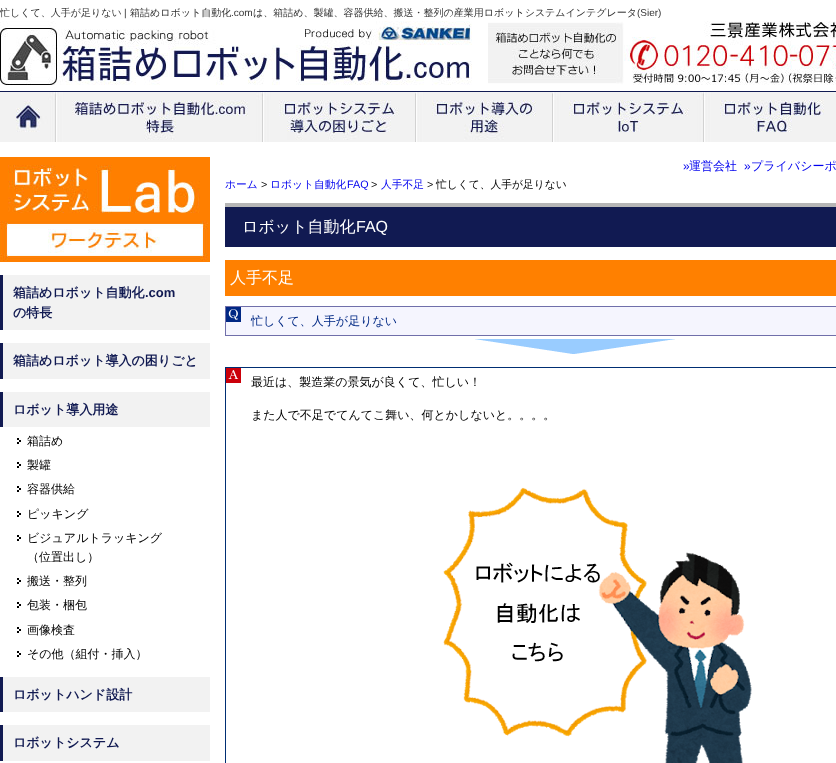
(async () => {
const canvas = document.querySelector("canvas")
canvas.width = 836
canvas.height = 763
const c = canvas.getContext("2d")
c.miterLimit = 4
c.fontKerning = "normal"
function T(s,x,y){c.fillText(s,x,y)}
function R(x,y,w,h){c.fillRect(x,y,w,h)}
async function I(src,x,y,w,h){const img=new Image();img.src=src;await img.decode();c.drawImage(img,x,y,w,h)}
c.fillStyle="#fff"
R(0,0,836,763)
c.fillStyle="#111b53"
R(0,91,836,1)
c.font="500 10px WenQuanYi Zen Hei"
c.fillStyle="#333"
T("忙しくて、人手が足りない",0,16)
c.font="10px Liberation Sans"
T("|",124,16)
c.font="500 10px WenQuanYi Zen Hei"
T("箱詰めロボット自動化",130,16)
c.font="10px Liberation Sans"
T(".com",231,16)
c.font="500 10px WenQuanYi Zen Hei"
T("は、箱詰め、製罐、容器供給、搬送・整列の産業用ロボットシステムインテグレータ",253,16)
c.font="10px Liberation Sans"
T("(Sier)",637,16)
await I("1.png",0,21,836,64)
c.fillStyle="#f2f2f2"
R(0,92,836,50)
await I("2.png",16,92,40,50)
await I("3.png",56,92,207,50)
await I("4.png",263,92,153,50)
await I("5.png",416,92,137,50)
await I("6.png",553,92,151,50)
await I("7.png",704,92,120,50)
await I("8.png",0,157,210,105)
R(3,275,207,55)
c.fillStyle="#111a52"
R(0,275,3,55)
c.font="bold 13px WenQuanYi Zen Hei"
T("箱詰めロボット自動化",13,297)
c.font="bold 13px Liberation Sans"
T(".com",145,297)
c.font="bold 13px WenQuanYi Zen Hei"
T("の特長",13,317)
c.fillStyle="#f2f2f2"
R(3,343,207,36)
c.fillStyle="#111a52"
R(0,343,3,36)
T("箱詰めロボット導入の困りごと",13,365)
c.fillStyle="#f2f2f2"
R(3,392,207,35)
c.fillStyle="#111a52"
R(0,392,3,35)
T("ロボット導入用途",13,414)
await I("9.png",17,438,4,6)
c.font="500 12px WenQuanYi Zen Hei"
c.fillStyle="#000"
T("箱詰め",27,445)
await I("9.png",17,462,4,6)
T("製罐",27,469)
await I("9.png",17,486,4,6)
T("容器供給",27,493)
await I("9.png",17,511,4,6)
T("ピッキング",27,518)
await I("9.png",17,535,4,6)
T("ビジュアルトラッキング",27,542)
T("（位置出し）",27,561)
await I("9.png",17,578,4,6)
T("搬送・整列",27,585)
await I("9.png",17,602,4,6)
T("包装・梱包",27,609)
await I("9.png",17,627,4,6)
T("画像検査",27,634)
await I("9.png",17,651,4,6)
T("その他（組付・挿入）",27,658)
c.fillStyle="#f2f2f2"
R(3,677,207,35)
c.fillStyle="#111a52"
R(0,677,3,35)
c.font="bold 13px WenQuanYi Zen Hei"
T("ロボットハンド設計",13,699)
c.fillStyle="#f2f2f2"
R(3,725,207,36)
c.fillStyle="#111a52"
R(0,725,3,36)
T("ロボットシステム",13,747)
c.font="12px Liberation Sans"
c.fillStyle="#00e"
T("»",683,170)
c.font="500 12px WenQuanYi Zen Hei"
T("運営会社",689,170)
c.font="12px Liberation Sans"
T("»",744,170)
c.font="500 12px WenQuanYi Zen Hei"
T("プライバシーポ",751,170)
c.font="500 10.75px WenQuanYi Zen Hei"
T("ホーム",225,188)
c.font="10.75px Liberation Sans"
c.fillStyle="#000"
T(">",261,188)
c.font="500 10.75px WenQuanYi Zen Hei"
c.fillStyle="#00e"
T("ロボット自動化",270,188)
c.font="10.75px Liberation Sans"
T("FAQ",347,188)
c.fillStyle="#000"
T(">",371,188)
c.font="500 10.75px WenQuanYi Zen Hei"
c.fillStyle="#00e"
T("人手不足",381,188)
c.font="10.75px Liberation Sans"
c.fillStyle="#000"
T(">",427,188)
c.font="500 10.75px WenQuanYi Zen Hei"
T("忙しくて、人手が足りない",436,188)
c.fillStyle="#111a52"
R(225,207,611,40)
c.fillStyle="#b6b6b6"
R(225,203,611,4)
c.font="500 16px WenQuanYi Zen Hei"
c.fillStyle="#fff"
T("ロボット自動化",242,232)
c.font="16px Liberation Sans"
T("FAQ",356,232)
c.fillStyle="#ff8000"
R(225,260,611,36)
c.font="500 16px WenQuanYi Zen Hei"
c.fillStyle="#fff"
T("人手不足",230,283)
c.fillStyle="#f5f5fe"
R(226,307,610,28)
await I("10.png",226,307,15,15)
c.strokeStyle="#706faa"
c.strokeRect(225.5,306.5,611,29)
c.font="500 12px WenQuanYi Zen Hei"
c.fillStyle="#012884"
T("忙しくて、人手が足りない",251,325)
await I("11.png",475,339,200,15)
await I("12.png",226,368,15,15)
c.strokeStyle="#002e73"
c.strokeRect(225.5,367.5,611,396)
c.fillStyle="#000"
T("最近は、製造業の景気が良くて、忙しい！",251,386)
T("また人で不足でてんてこ舞い、何とかしないと。。。。",251,419)
await I("13.png",443,487,309,276)
})()
